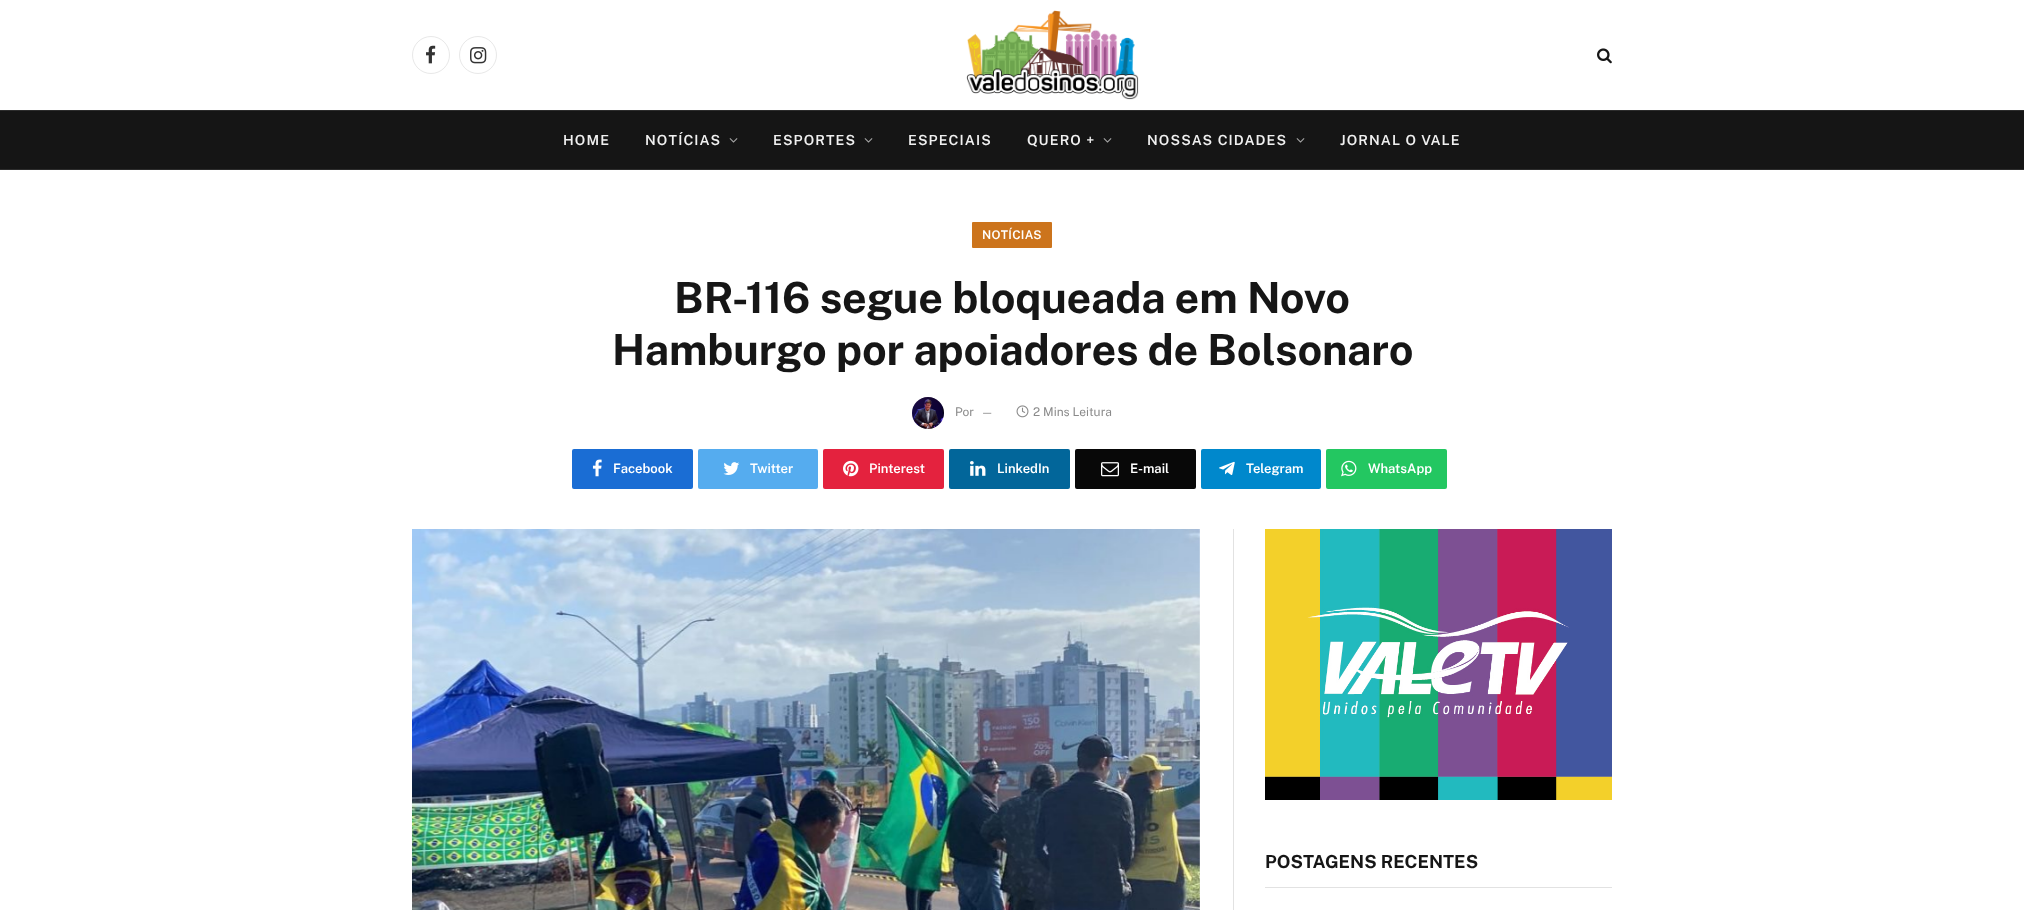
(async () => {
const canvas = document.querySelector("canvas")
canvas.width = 2024
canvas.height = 910
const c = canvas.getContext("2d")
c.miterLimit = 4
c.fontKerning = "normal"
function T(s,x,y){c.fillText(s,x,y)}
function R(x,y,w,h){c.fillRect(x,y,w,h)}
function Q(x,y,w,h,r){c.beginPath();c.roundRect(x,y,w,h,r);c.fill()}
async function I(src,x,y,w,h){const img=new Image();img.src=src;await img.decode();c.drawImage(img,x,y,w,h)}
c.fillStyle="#fff"
R(0,0,2024,910)
c.beginPath()
c.arc(431,55,18.5,0,7)
c.strokeStyle="#e8e8e8"
c.stroke()
await I("1.png",426,45,10,19)
c.beginPath()
c.arc(478,55,18.5,0,7)
c.stroke()
await I("2.png",470,47,17,17)
await I("3.png",966,10,173,90)
await I("4.png",1597,48,15,16)
c.fillStyle="#151515"
R(0,111,2024,58)
c.fillStyle="#2c2c2c"
R(0,110,2024,1)
R(0,169,2024,1)
c.letterSpacing="1.1px"
c.font="600 14px Public Sans"
c.fillStyle="#f0f0f0"
T("HOME",563,145)
T("NOTÍCIAS",645,145)
await I("5.png",729,138,9,5)
T("ESPORTES",773,145)
await I("5.png",864,138,9,5)
T("ESPECIAIS",908,145)
T("QUERO +",1027,145)
await I("5.png",1103,138,9,5)
T("NOSSAS CIDADES",1147,145)
await I("5.png",1296,138,9,5)
T("JORNAL O VALE",1340,145)
c.fillStyle="#cc741c"
Q(972,222,80,26,1)
c.letterSpacing="0.25px"
c.font="600 12px Public Sans"
c.fillStyle="#fff"
T("NOTÍCIAS",982,239)
c.letterSpacing="-0.2px"
c.font="bold 43px Public Sans"
c.fillStyle="#161616"
T("BR-116 segue bloqueada em Novo",674,313)
T("Hamburgo por apoiadores de Bolsonaro",612,365)
c.fillStyle="#00000033"
c.filter="blur(0.5px)"
c.beginPath()
c.roundRect(912,397,32,32,16)
c.fill()
c.filter="none"
await I("6.png",912,397,32,32)
c.letterSpacing="0px"
c.font="12px Public Sans"
c.fillStyle="#8a8a8a"
T("Por",955,416)
c.font="11px Public Sans"
T("—",981,416)
await I("7.png",1016,405,13,13)
c.font="12px Public Sans"
T("2 Mins Leitura",1033,416)
c.fillStyle="#1a6dd4"
Q(572,449,121,40,2)
await I("8.png",592,459,10,18)
c.font="600 13px Public Sans"
c.fillStyle="#fff"
T("Facebook",613,473)
c.fillStyle="#55acef"
Q(698,449,120,40,2)
await I("9.png",723,462,17,13)
c.fillStyle="#fff"
T("Twitter",750,473)
c.fillStyle="#e4223e"
Q(823,449,121,40,2)
await I("10.png",843,460,16,17)
c.fillStyle="#fff"
T("Pinterest",869,473)
c.fillStyle="#02669a"
Q(949,449,121,40,2)
await I("11.png",970,461,16,15)
c.fillStyle="#fff"
T("LinkedIn",997,473)
c.fillStyle="#080808"
Q(1075,449,121,40,2)
await I("12.png",1101,462,18,15)
c.fillStyle="#fff"
T("E-mail",1130,473)
c.fillStyle="#08c"
Q(1201,449,120,40,2)
await I("13.png",1219,461,16,14)
c.fillStyle="#fff"
T("Telegram",1246,473)
c.fillStyle="#23c761"
Q(1326,449,121,40,2)
await I("14.png",1341,460,16,17)
c.fillStyle="#fff"
T("WhatsApp",1368,473)
await I("15.png",412,529,788,381)
c.fillStyle="#e2e2e2"
R(1233,529,1,381)
await I("16.png",1265,529,347,271)
R(1265,887,347,1)
c.font="bold 18px Public Sans"
c.fillStyle="#161616"
T("POSTAGENS RECENTES",1265,868)
})()
